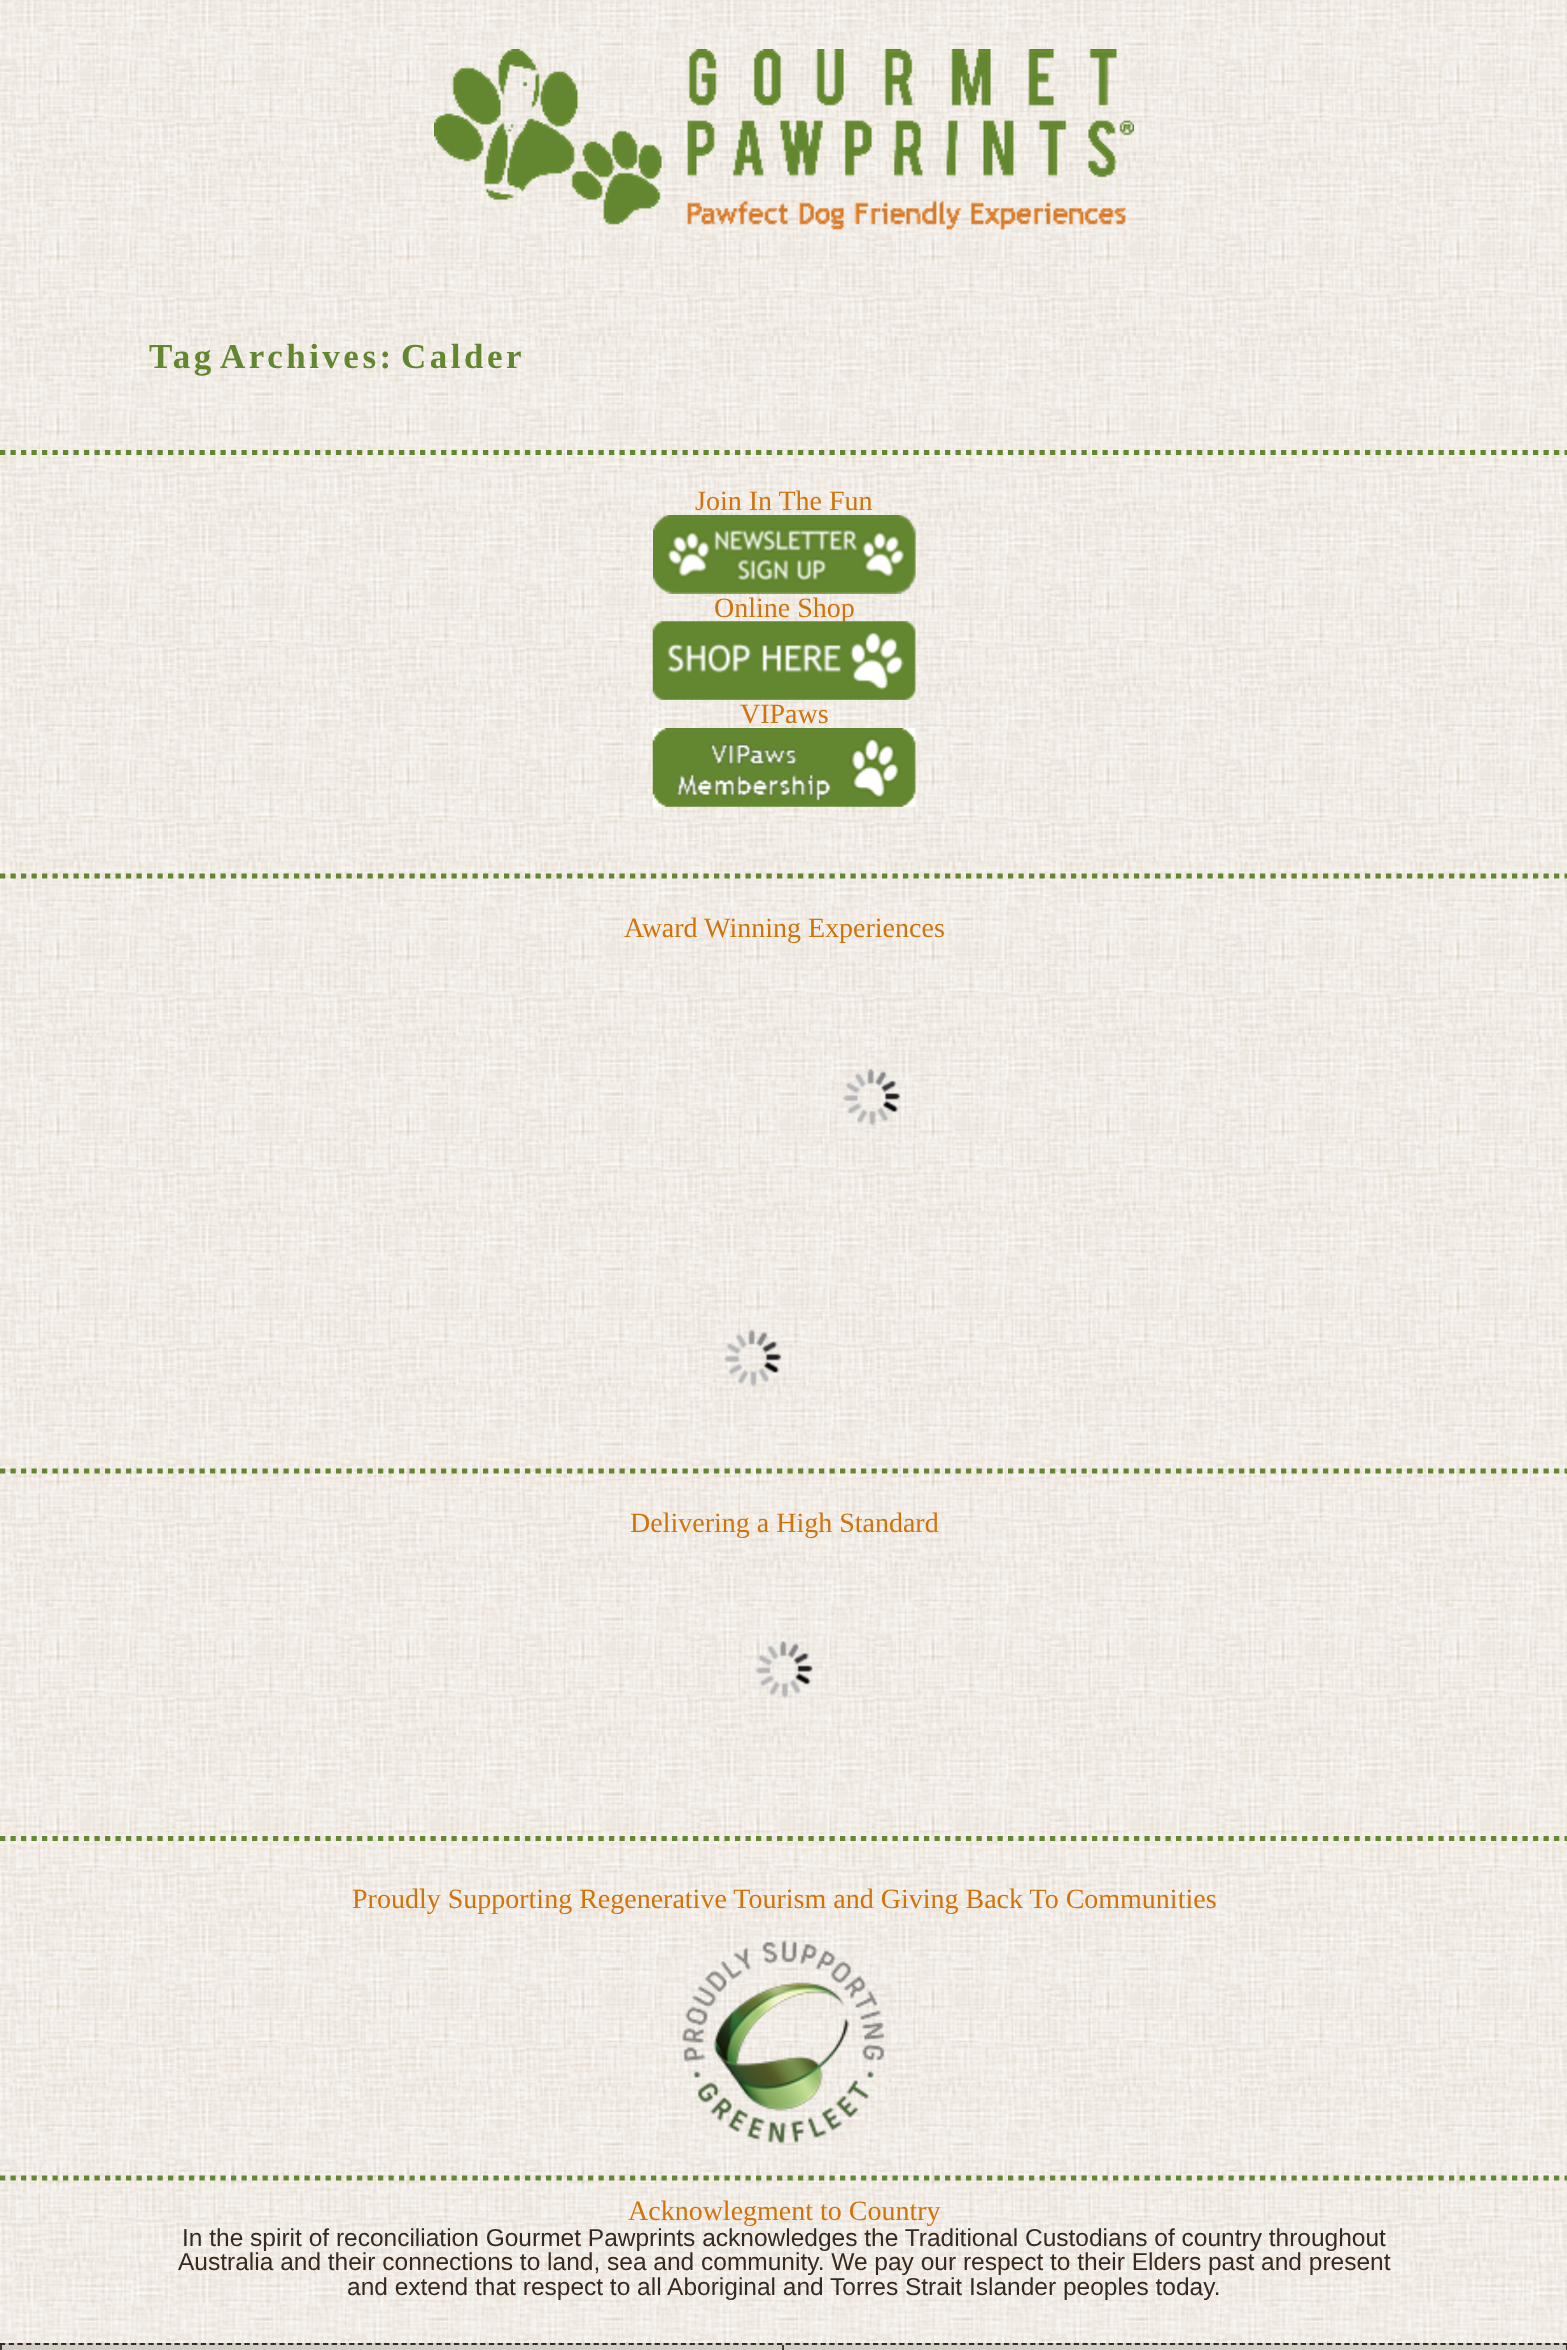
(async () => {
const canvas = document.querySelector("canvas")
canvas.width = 1567
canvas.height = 2350
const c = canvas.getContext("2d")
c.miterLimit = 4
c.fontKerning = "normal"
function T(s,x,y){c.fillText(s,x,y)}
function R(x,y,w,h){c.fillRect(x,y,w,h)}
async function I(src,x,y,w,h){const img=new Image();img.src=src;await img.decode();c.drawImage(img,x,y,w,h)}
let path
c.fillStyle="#fff"
R(0,0,1567,2350)
await I("1.png",0,0,1567,2343)
await I("2.png",434,49,700,182)
c.letterSpacing="3.5px"
c.wordSpacing="-5px"
c.font="bold 35px Liberation Serif"
c.fillStyle="#638630"
T("Tag Archives:",149,368)
c.wordSpacing="0px"
T("Calder",401,368)
path = new Path2D("M0 452.5h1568")
c.strokeStyle="#638630"
c.lineWidth=5.2
c.setLineDash([5.25,5.25])
c.stroke(path)
path = new Path2D("M0 876h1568")
c.stroke(path)
c.letterSpacing="0px"
c.font="28px Liberation Serif"
c.fillStyle="#cf730c"
T("Join In The Fun",695,510)
await I("3.png",653,515,263,79)
T("Online Shop",714,617)
await I("4.png",652,621,264,79)
T("VIPaws",740,723)
await I("5.png",652,728,264,79)
T("Award Winning Experiences",624,937)
await I("6.png",843,1069,58,57)
await I("7.png",724,1329,57,58)
path = new Path2D("M0 1471h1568")
c.stroke(path)
T("Delivering a High Standard",630,1532)
await I("8.png",755,1641,58,57)
path = new Path2D("M0 1838.5h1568")
c.stroke(path)
T("Proudly Supporting Regenerative Tourism and Giving Back To Communities",352,1908)
await I("9.png",682,1940,203,204)
path = new Path2D("M0 2178h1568")
c.stroke(path)
T("Acknowlegment to Country",628,2220)
c.font="24.5px Liberation Sans"
c.fillStyle="#36291f"
T("In the spirit of reconciliation Gourmet Pawprints acknowledges the Traditional Custodians of country throughout",182,2246)
T("Australia and their connections to land, sea and community. We pay our respect to their Elders past and present",178,2270)
T("and extend that respect to all Aboriginal and Torres Strait Islander peoples today.",347,2295)
c.fillStyle="#d1cec6"
R(0,2343,1567,7)
path = new Path2D("M0 2344h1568")
c.strokeStyle="#36291f"
c.lineWidth=1.8
c.setLineDash([5.25,3.48])
c.stroke(path)
path = new Path2D("M783 2345v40")
c.setLineDash([5.25,3.5])
c.stroke(path)
path = new Path2D("M1 2345v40")
c.stroke(path)
path = new Path2D("M1567 2345v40")
c.stroke(path)
})()
